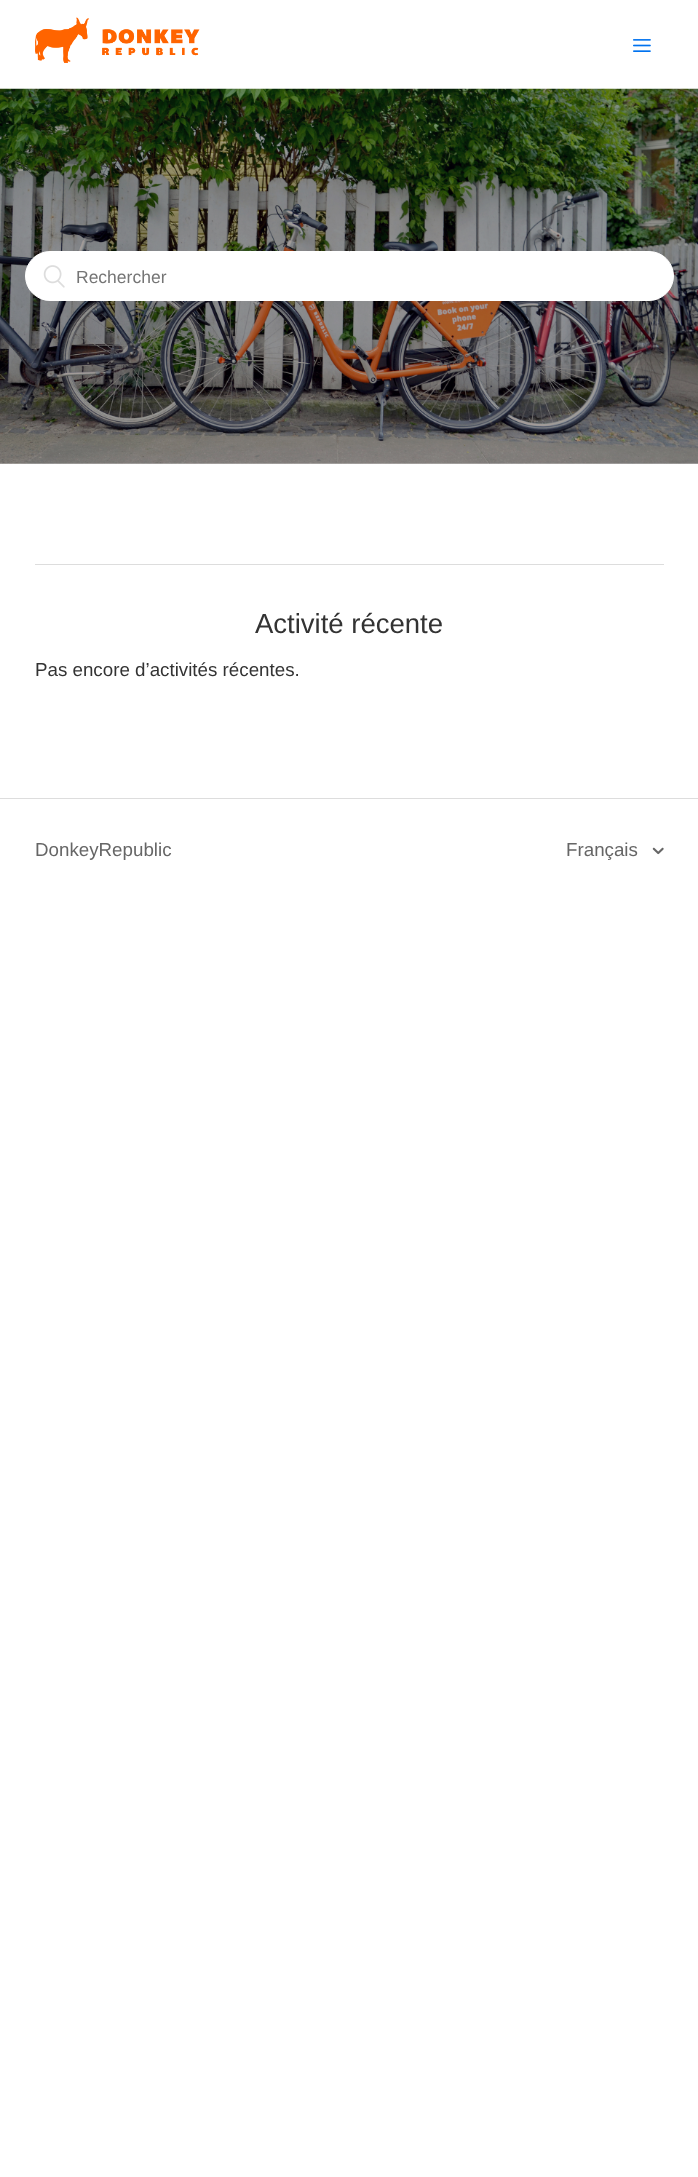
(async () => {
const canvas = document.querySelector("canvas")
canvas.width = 698
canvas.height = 2177
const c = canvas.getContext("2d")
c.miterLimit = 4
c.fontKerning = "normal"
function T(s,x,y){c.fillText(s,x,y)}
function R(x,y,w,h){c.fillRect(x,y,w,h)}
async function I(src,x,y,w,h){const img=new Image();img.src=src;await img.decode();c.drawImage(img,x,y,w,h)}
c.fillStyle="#fff"
R(0,0,698,2177)
await I("1.png",35,17,165,46)
await I("2.png",633,39,18,13)
await I("3.png",0,88,698,376)
c.beginPath()
c.roundRect(25.5,251.5,648,49,24.5)
c.fill()
c.strokeStyle="#fff"
c.stroke()
await I("4.png",43,265,22,23)
c.font="17.5px Liberation Sans"
c.fillStyle="#757575"
T("Rechercher",76,283)
c.fillStyle="#ddd"
R(35,564,629,1)
c.font="27.5px Liberation Sans"
c.fillStyle="#333"
T("Activité récente",255,633)
c.font="18.75px Liberation Sans"
T("Pas encore d’activités récentes.",35,676)
c.fillStyle="#ddd"
R(0,798,698,1)
c.fillStyle="#666"
T("DonkeyRepublic",35,856)
T("Français",566,856)
await I("5.png",652,847,12,8)
})()
